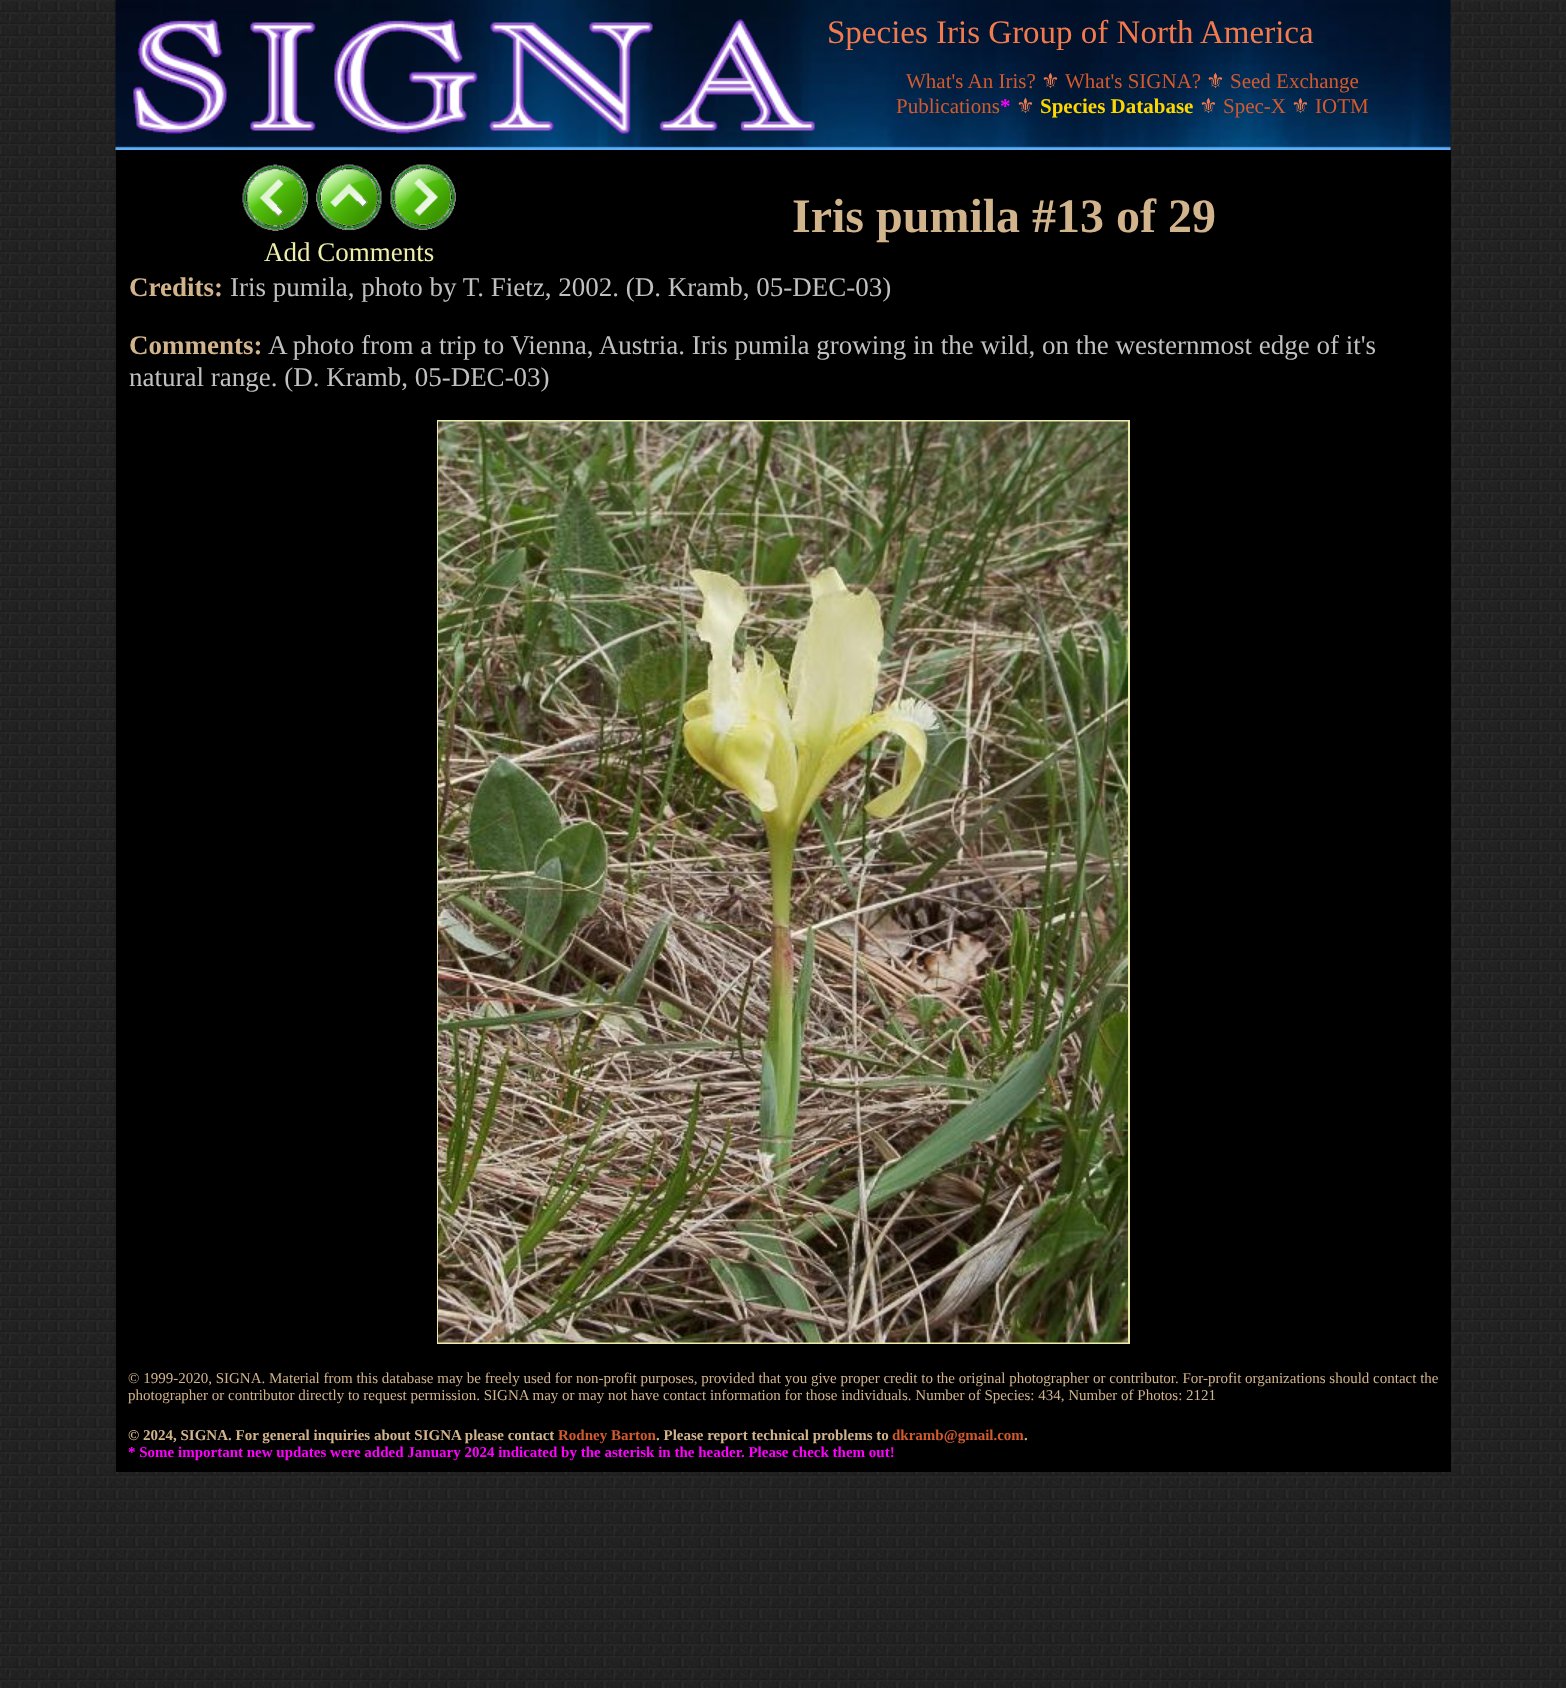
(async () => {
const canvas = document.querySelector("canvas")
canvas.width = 1566
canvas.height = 1688
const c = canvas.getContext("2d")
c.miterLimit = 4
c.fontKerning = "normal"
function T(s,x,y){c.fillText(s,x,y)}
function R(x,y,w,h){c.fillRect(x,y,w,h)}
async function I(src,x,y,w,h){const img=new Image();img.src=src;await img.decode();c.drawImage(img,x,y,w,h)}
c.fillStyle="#fff"
R(0,0,1566,1688)
await I("1.png",0,0,1566,1688)
await I("2.png",115,0,1336,150)
await I("3.png",133,19,682,115)
c.font="33px Liberation Serif"
c.fillStyle="#f37a4d"
T("Species Iris Group of North America",827,43)
c.font="21px Liberation Serif"
c.fillStyle="#d35a2d"
T("What's An Iris?",906,88)
c.font="21px DejaVu Sans"
c.fillStyle="#f37a4d"
T("⚜",1041,88)
c.font="21px Liberation Serif"
c.fillStyle="#d35a2d"
T("What's SIGNA?",1065,88)
c.font="21px DejaVu Sans"
c.fillStyle="#f37a4d"
T("⚜",1206,88)
c.font="21px Liberation Serif"
c.fillStyle="#d35a2d"
T("Seed Exchange",1230,88)
T("Publications",896,113)
c.font="bold 21px Liberation Serif"
c.fillStyle="#f0f"
T("*",1000,113)
c.font="21px DejaVu Sans"
c.fillStyle="#f37a4d"
T("⚜",1016,113)
c.font="bold 21px Liberation Serif"
c.fillStyle="#ffd700"
T("Species Database",1040,113)
c.font="21px DejaVu Sans"
c.fillStyle="#f37a4d"
T("⚜",1199,113)
c.font="21px Liberation Serif"
c.fillStyle="#d35a2d"
T("Spec-X",1223,113)
c.font="21px DejaVu Sans"
c.fillStyle="#f37a4d"
T("⚜",1291,113)
c.font="21px Liberation Serif"
c.fillStyle="#d35a2d"
T("IOTM",1315,113)
c.fillStyle="#000"
R(116,150,1335,1322)
c.font="bold 48px Liberation Serif"
c.fillStyle="#d2b48c"
T("Iris pumila #13 of 29",792,232)
await I("4.png",242,164,67,67)
await I("5.png",316,164,66,67)
await I("6.png",390,164,66,67)
c.font="27px Liberation Serif"
c.fillStyle="#eea"
T("Add Comments",264,261)
c.font="bold 27px Liberation Serif"
c.fillStyle="#d2b48c"
T("Credits:",129,296)
c.font="27px Liberation Serif"
c.fillStyle="#c0c0c0"
T("Iris pumila, photo by T. Fietz, 2002. (D. Kramb, 05-DEC-03)",230,296)
c.font="bold 27px Liberation Serif"
c.fillStyle="#d2b48c"
T("Comments:",129,354)
c.font="27px Liberation Serif"
c.fillStyle="#c0c0c0"
T("A photo from a trip to Vienna, Austria. Iris pumila growing in the wild, on the westernmost edge of it's",268,354)
T("natural range. (D. Kramb, 05-DEC-03)",129,386)
c.strokeStyle="#eea"
c.lineWidth=2
c.strokeRect(438,421,691,922)
await I("7.png",438,421,690,922)
c.font="15px Liberation Serif"
c.fillStyle="#d2b48c"
T("© 1999-2020, SIGNA. Material from this database may be freely used for non-profit purposes, provided that you give proper credit to the original photographer or contributor. For-profit organizations should contact the",128,1383)
T("photographer or contributor directly to request permission. SIGNA may or may not have contact information for those individuals. Number of Species: 434, Number of Photos: 2121",128,1400)
c.font="bold 15px Liberation Serif"
T("© 2024, SIGNA. For general inquiries about SIGNA please contact",128,1440)
c.fillStyle="#d35a2d"
T("Rodney Barton",558,1440)
c.fillStyle="#d2b48c"
T(". Please report technical problems to",656,1440)
c.fillStyle="#d35a2d"
T("dkramb@gmail.com",892,1440)
c.fillStyle="#d2b48c"
T(".",1024,1440)
c.fillStyle="#f0f"
T("* Some important new updates were added January 2024 indicated by the asterisk in the header. Please check them out!",128,1457)
})()
